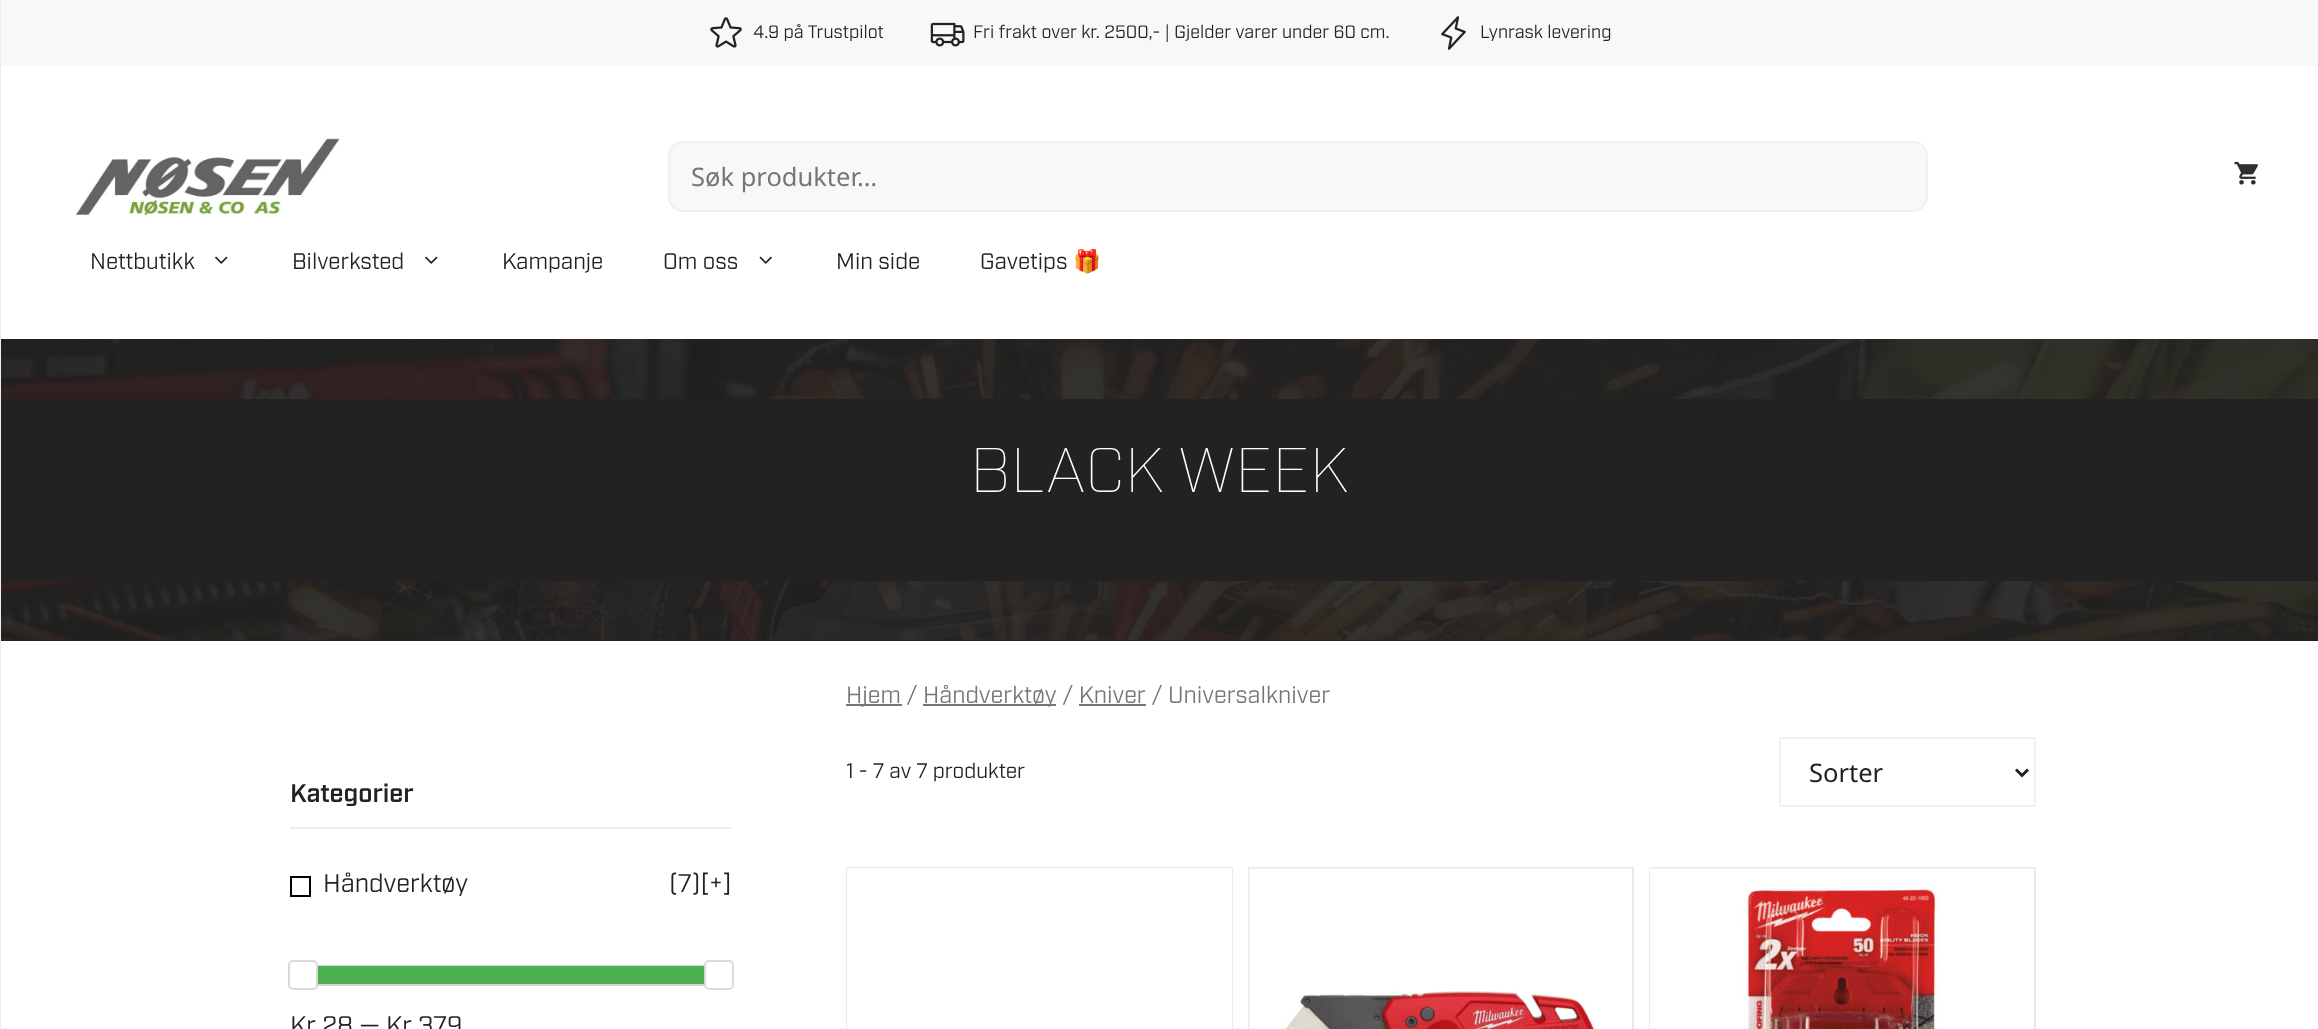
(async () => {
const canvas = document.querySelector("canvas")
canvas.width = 2318
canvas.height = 1029
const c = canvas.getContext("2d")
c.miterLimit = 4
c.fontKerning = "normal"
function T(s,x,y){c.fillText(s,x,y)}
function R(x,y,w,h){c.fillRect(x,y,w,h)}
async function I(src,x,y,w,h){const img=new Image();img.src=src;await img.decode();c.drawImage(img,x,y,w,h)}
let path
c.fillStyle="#fff"
R(0,0,2318,1029)
c.fillStyle="#eee"
R(0,0,1,1029)
c.fillStyle="#f7f8f9"
R(1,0,2317,66)
await I("1.png",710,17,32,31)
c.font="18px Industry"
c.fillStyle="#222"
T("4.9 på Trustpilot",753,38)
await I("2.png",930,22,35,25)
T("Fri frakt over kr. 2500,- | Gjelder varer under 60 cm.",973,38)
await I("3.png",1441,16,25,34)
T("Lynrask levering",1480,38)
await I("4.png",75,138,265,79)
c.fillStyle="#f7f8f9"
c.beginPath()
c.roundRect(669,142,1258,69,14)
c.fill()
c.strokeStyle="#f0f0f0"
c.lineWidth=2
c.stroke()
c.font="25.5px Noto Sans"
c.fillStyle="#767676"
T("Søk produkter…",691,186)
await I("5.png",2234,161,24,24)
c.font="22.5px Industry"
c.fillStyle="#222"
T("Nettbutikk",90,269)
await I("6.png",215,256,13,8)
T("Bilverksted",292,269)
await I("6.png",425,256,13,8)
T("Kampanje",502,269)
T("Om oss",663,269)
await I("7.png",759,256,13,8)
T("Min side",836,269)
T("Gavetips",980,269)
c.font="22.5px Noto Color Emoji"
T("🎁",1073,269)
R(1,339,2317,302)
await I("8.png",1,339,2317,301)
R(1,399,2317,182)
c.font="100 63px Industry"
c.fillStyle="#fff"
T("BLACK WEEK",970,492)
c.fillStyle="#767676"
R(846,704,56,2)
c.font="23.5px Industry"
T("Hjem /",846,703)
R(923,704,133,2)
T("Håndverktøy / Kniver / Universalkniver",923,703)
R(1079,704,67,2)
c.font="21px Industry"
c.fillStyle="#222"
T("1 - 7 av 7 produkter",846,778)
c.strokeRect(1780,738,255,68)
path = new Path2D("M2016 769.5l6 6l6-6")
c.strokeStyle="#222"
c.lineWidth=3
c.stroke(path)
c.font="25.5px Noto Sans"
T("Sorter",1809,782)
c.strokeStyle="#e9e9e9"
c.lineWidth=2
c.strokeRect(847,868,385,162)
c.fillStyle="#fff"
R(847,868,385,161)
c.strokeRect(1249,868,384,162)
await I("9.png",1249,868,383,161)
c.strokeRect(1650,868,385,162)
await I("10.png",1650,868,384,161)
c.fillStyle="#efefef"
R(290,827,442,2)
c.font="600 25.5px Industry"
c.fillStyle="#222"
T("Kategorier",290,802)
c.strokeStyle="#000"
c.strokeRect(291,877,19,19)
c.font="25.5px Industry"
T("Håndverktøy",323,892)
T("(7)[+]",669,892)
c.strokeStyle="#d3d3d3"
c.strokeRect(291,966,440,19)
c.fillStyle="#fff"
c.beginPath()
c.roundRect(289,961,28,28,4)
c.fill()
c.strokeStyle="#d9d9d9"
c.stroke()
c.fillStyle="#4caf50"
R(318,966,386,18)
c.fillStyle="#fff"
c.beginPath()
c.roundRect(705,961,28,28,4)
c.fill()
c.stroke()
c.fillStyle="#222"
T("Kr 28 — Kr 379",290,1034)
})()
